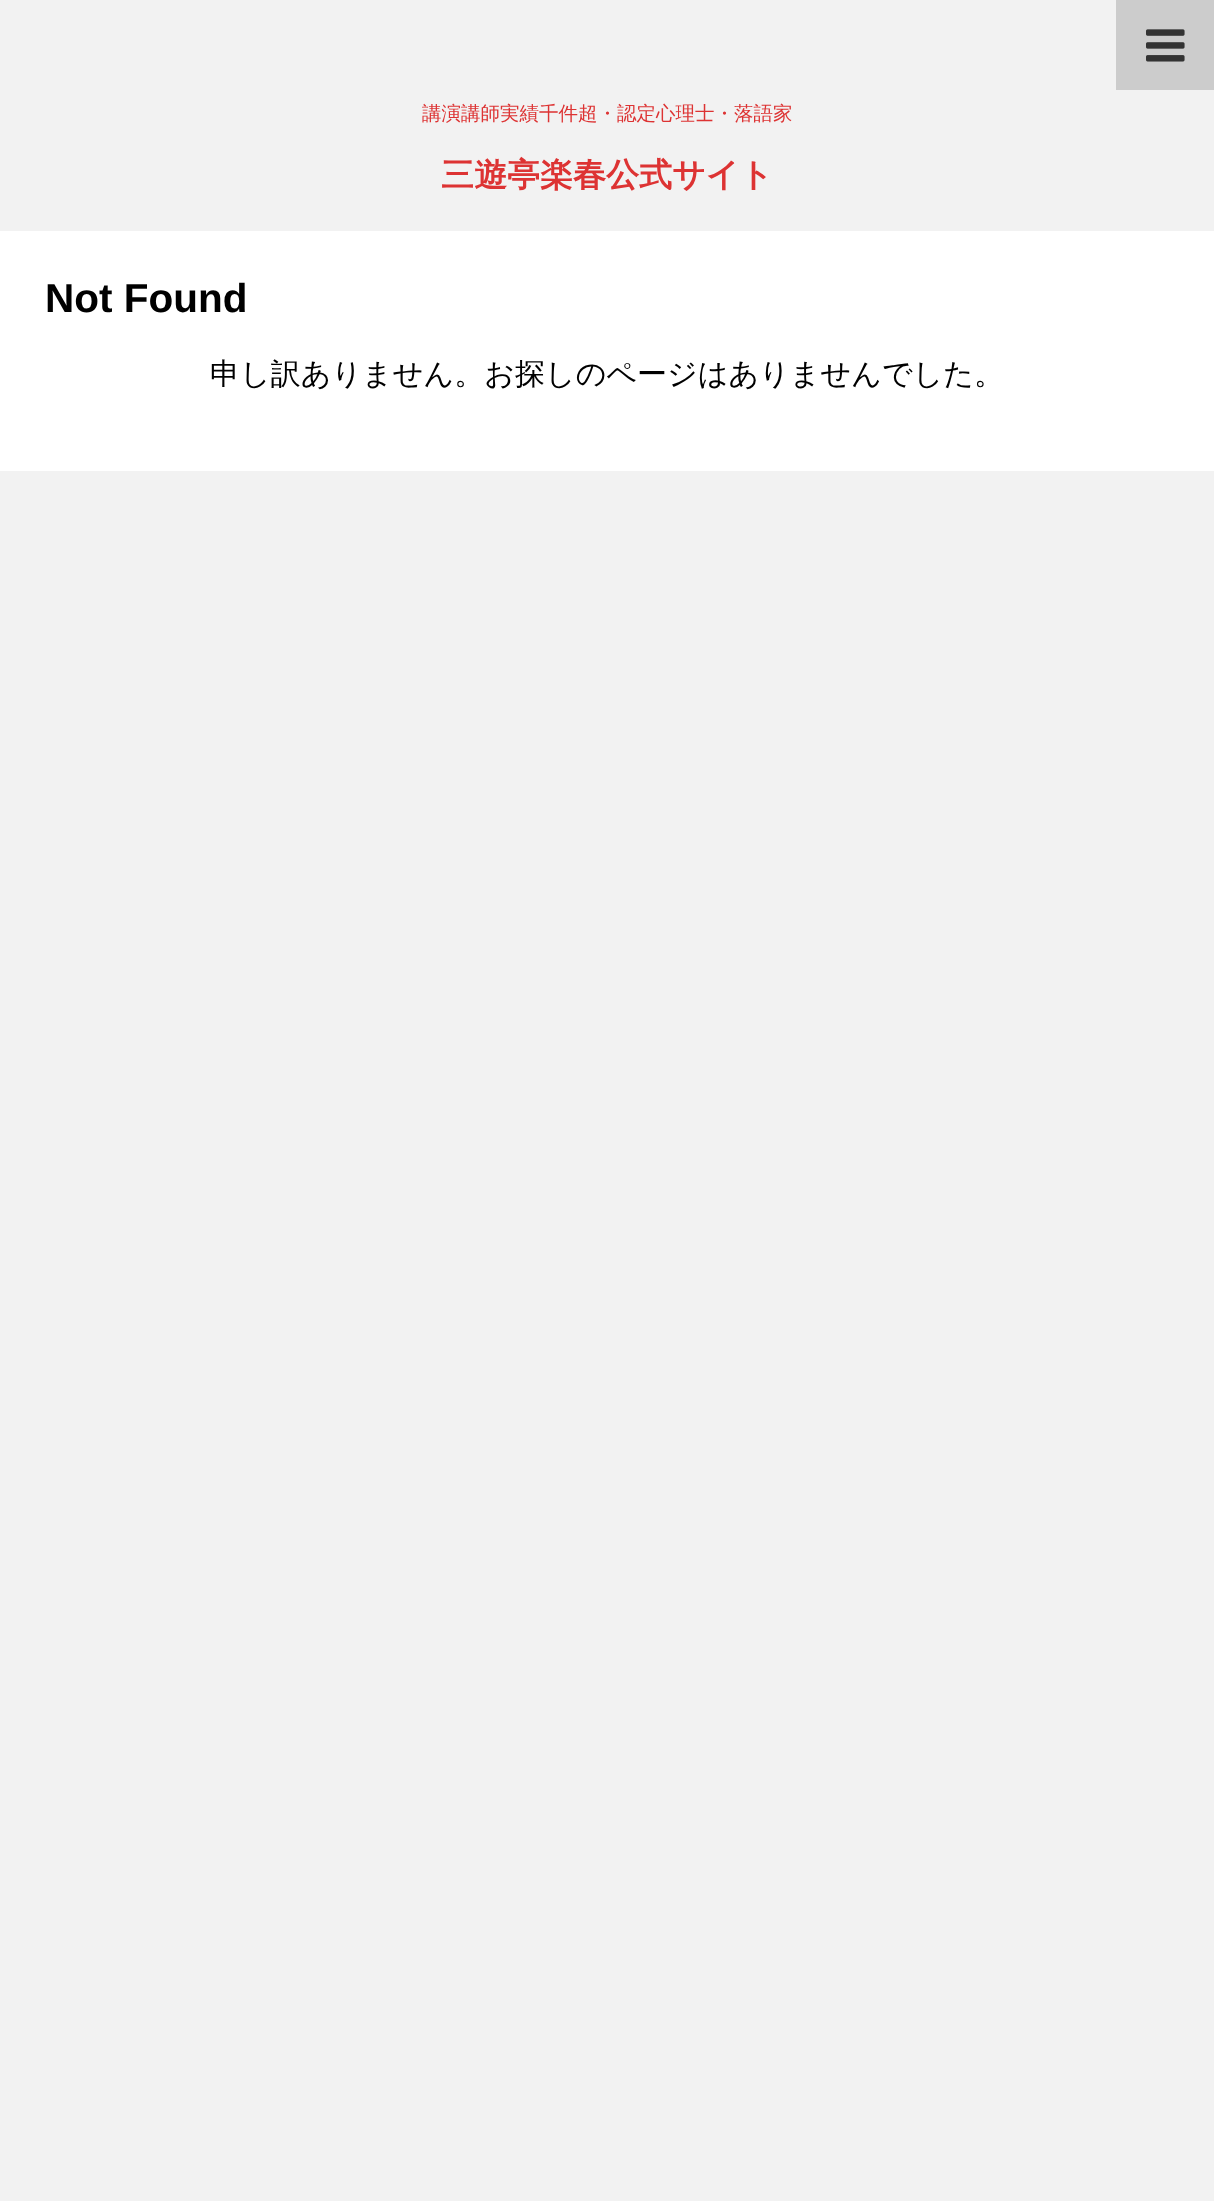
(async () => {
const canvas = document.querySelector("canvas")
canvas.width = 1214
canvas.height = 2201
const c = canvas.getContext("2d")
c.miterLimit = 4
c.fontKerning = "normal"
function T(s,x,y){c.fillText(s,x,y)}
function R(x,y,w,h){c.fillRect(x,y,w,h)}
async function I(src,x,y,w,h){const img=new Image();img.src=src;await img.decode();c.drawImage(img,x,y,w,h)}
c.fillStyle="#f2f2f2"
R(0,0,1214,2201)
c.fillStyle="#ccc"
R(1116,0,98,90)
await I("1.png",1146,29,39,33)
c.font="500 19.5px WenQuanYi Zen Hei"
c.fillStyle="#d33"
T("講演講師実績千件超・認定心理士・落語家",422,120)
c.font="bold 33px WenQuanYi Zen Hei"
T("三遊亭楽春公式サイト",441,186)
c.fillStyle="#fff"
R(0,231,1214,240)
c.font="bold 40.5px Liberation Sans"
c.fillStyle="#000"
T("Not Found",45,312)
c.font="500 30px WenQuanYi Zen Hei"
T("申し訳ありません。お探しのページはありませんでした。",210,384)
})()
